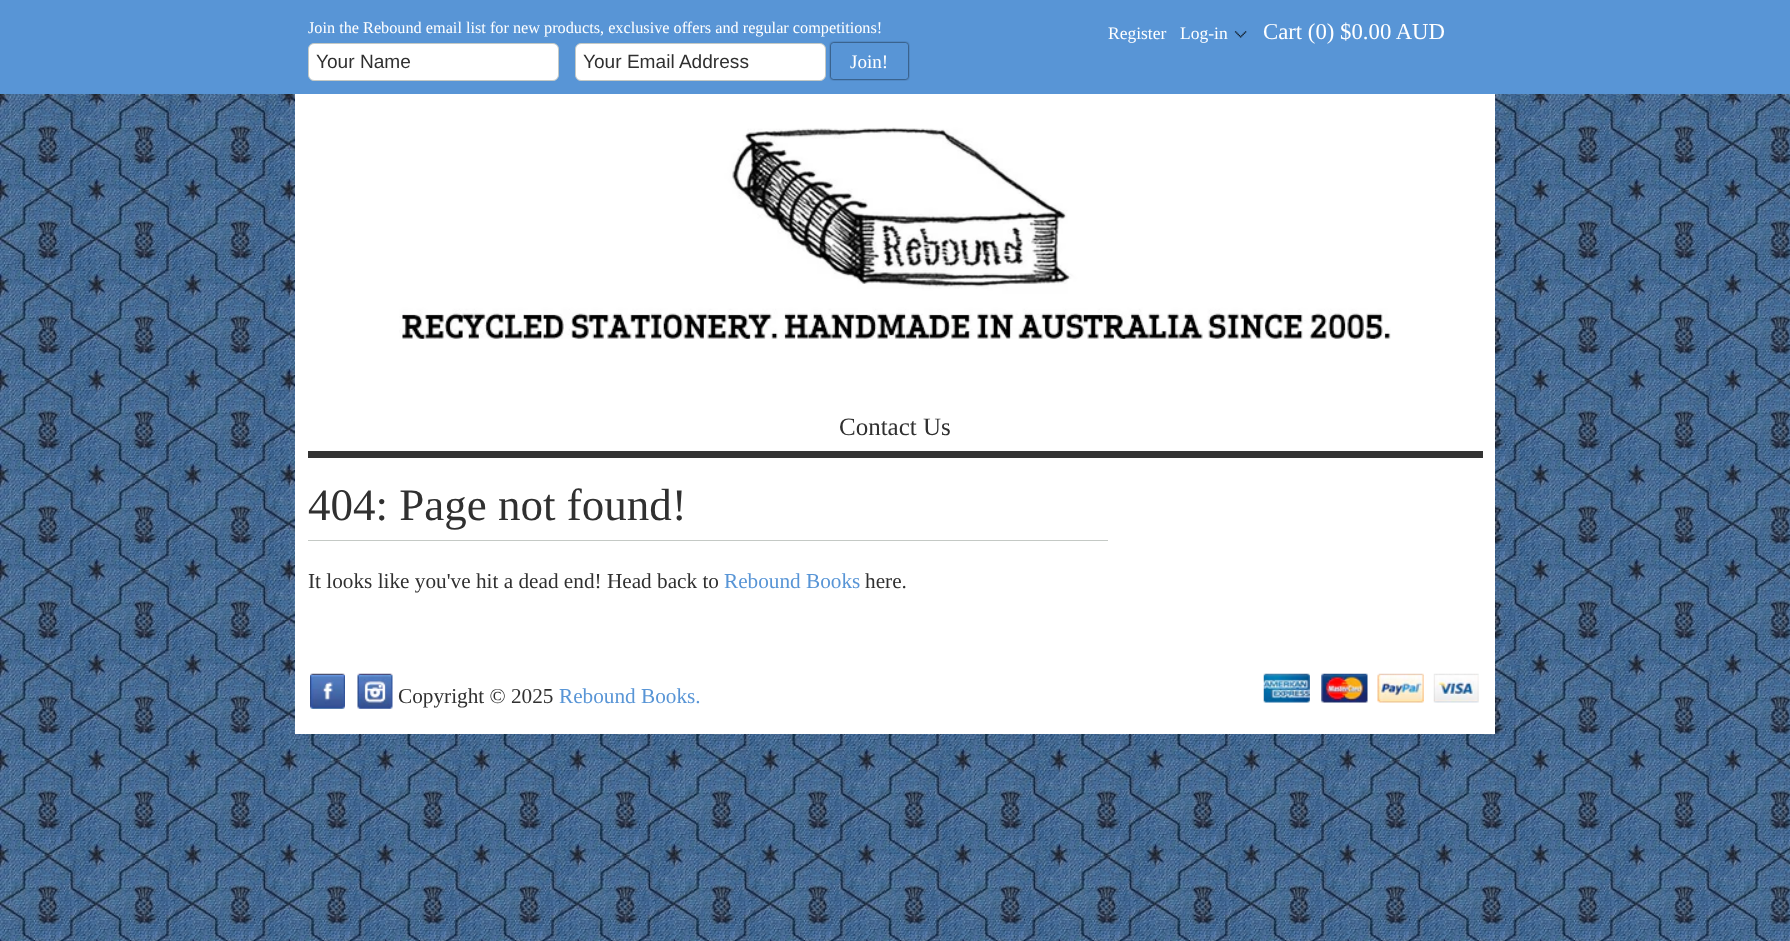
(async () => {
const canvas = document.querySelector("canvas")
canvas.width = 1790
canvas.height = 941
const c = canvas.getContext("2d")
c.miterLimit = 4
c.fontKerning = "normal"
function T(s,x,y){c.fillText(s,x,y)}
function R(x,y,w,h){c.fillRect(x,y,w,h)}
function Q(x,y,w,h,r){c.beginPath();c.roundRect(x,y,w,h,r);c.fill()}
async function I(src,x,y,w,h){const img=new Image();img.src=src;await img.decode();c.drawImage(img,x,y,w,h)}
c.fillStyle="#fff"
R(0,0,1790,941)
await I("1.png",0,94,1790,847)
c.fillStyle="#5895d6"
R(0,0,1790,94)
c.font="16.25px Liberation Serif"
c.fillStyle="#fff"
T("Join the Rebound email list for new products, exclusive offers and regular competitions!",308,33)
c.beginPath()
c.roundRect(308.5,43.5,250,37,5.5)
c.fill()
c.strokeStyle="#c4c9c5"
c.stroke()
c.font="19.1px Liberation Sans"
c.fillStyle="#303030"
T("Your Name",316,68)
c.fillStyle="#fff"
c.beginPath()
c.roundRect(575.5,43.5,250,37,5.5)
c.fill()
c.stroke()
c.fillStyle="#303030"
T("Your Email Address",583,68)
c.fillStyle="#000"
c.filter="blur(1px)"
c.beginPath()
c.roundRect(831,43,77,36,2.5)
c.fill()
c.filter="none"
c.fillStyle="#5895d6"
Q(831,43,77,36,2.5)
c.font="19.1px Liberation Serif"
c.fillStyle="#fff"
T("Join!",850,68)
c.font="17.5px Liberation Serif"
T("Register",1108,39)
await I("2.png",1234,31,13,7)
T("Log-in",1180,39)
c.font="22.75px Liberation Serif"
T("Cart (0) $0.00 AUD",1263,39)
R(295,94,1200,640)
await I("3.png",399,127,992,212)
c.fillStyle="#333"
R(308,451,1175,7)
c.font="25px Liberation Serif"
c.fillStyle="#303030"
T("Contact Us",839,435)
c.fillStyle="#c4c9c5"
R(308,540,800,1)
c.font="45px Liberation Serif"
c.fillStyle="#303030"
T("404: Page not found!",308,520)
c.font="21.25px Liberation Serif"
T("It looks like you've hit a dead end! Head back to",308,588)
c.fillStyle="#5895d6"
T("Rebound Books",724,588)
c.fillStyle="#303030"
T("here.",865,588)
await I("4.png",310,673,35,36)
await I("5.png",357,673,36,36)
T("Copyright © 2025",398,703)
c.fillStyle="#5895d6"
T("Rebound Books.",559,703)
await I("6.png",1263,673,47,30)
await I("7.png",1321,673,47,30)
await I("8.png",1377,673,47,30)
await I("9.png",1433,673,46,30)
})()
